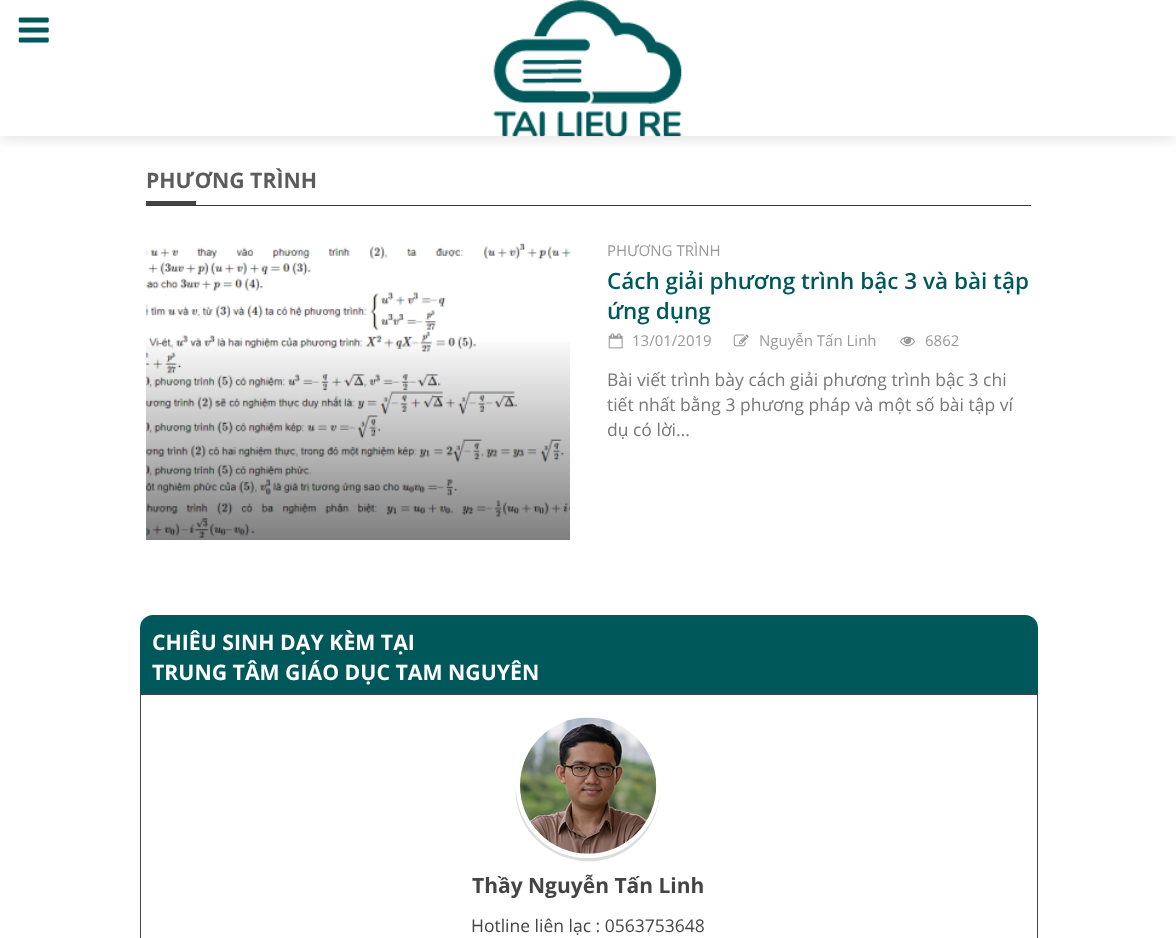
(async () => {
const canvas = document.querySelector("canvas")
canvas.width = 1176
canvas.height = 938
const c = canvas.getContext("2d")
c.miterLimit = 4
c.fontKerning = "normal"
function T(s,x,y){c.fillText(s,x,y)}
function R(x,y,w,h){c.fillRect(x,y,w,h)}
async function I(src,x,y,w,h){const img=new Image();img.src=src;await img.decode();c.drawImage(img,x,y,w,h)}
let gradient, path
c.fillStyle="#fff"
R(0,0,1176,938)
c.save()
c.beginPath()
c.rect(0,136,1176,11)
c.clip()
c.fillStyle="#00000026"
c.filter="blur(9.5px)"
c.beginPath()
c.rect(0,0,1176,136)
c.fill()
c.filter="none"
c.restore()
await I("1.png",18,17,31,26)
await I("2.png",493,0,189,137)
c.fillStyle="#393939"
R(146,205,885,1)
c.font="bold 21.25px Open Sans"
c.fillStyle="#5c5c5c"
T("PHƯƠNG TRÌNH",146,188)
c.fillStyle="#444"
R(146,201,50,4)
await I("3.png",146,243,424,295)
gradient = c.createLinearGradient(358,333,358,540)
gradient.addColorStop(0,"#00000000")
gradient.addColorStop(1,"#00000080")
c.fillStyle = gradient
R(146,342,424,198)
c.font="15px Open Sans"
c.fillStyle="#999"
T("PHƯƠNG TRÌNH",607,256)
c.font="600 22.5px Open Sans"
c.fillStyle="#00585b"
T("Cách giải phương trình bậc 3 và bài tập",607,289)
T("ứng dụng",607,319)
await I("4.png",608,333,15,16)
c.font="15px Open Sans"
c.fillStyle="#999"
T("13/01/2019",632,346)
await I("5.png",733,334,16,13)
T("Nguyễn Tấn Linh",759,346)
await I("6.png",900,336,15,11)
T("6862",925,346)
c.font="17.5px Open Sans"
c.fillStyle="#777"
T("Bài viết trình bày cách giải phương trình bậc 3 chi",607,386)
T("tiết nhất bằng 3 phương pháp và một số bài tập ví",607,411)
T("dụ có lời...",607,436)
c.fillStyle="#00585b"
c.beginPath()
c.roundRect(140,615,898,79,[13,13,0,0])
c.fill()
c.font="bold 21.25px Open Sans"
c.fillStyle="#fff"
T("CHIÊU SINH DẠY KÈM TẠI",152,650)
T("TRUNG TÂM GIÁO DỤC TAM NGUYÊN",152,680)
c.strokeStyle="#444"
c.strokeRect(140.5,694.5,897,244)
c.fillStyle="#ddd"
path = new Path2D("M516 783c-6 74 91 108 132 46c8-12 12-27 12-41c-2 69-93 96-131 38c-9-13-13-28-13-43z")
c.fill(path)
c.beginPath()
c.arc(588,786,70,0,7)
c.strokeStyle="#fff"
c.lineWidth=4
c.stroke()
await I("7.png",520,717,137,137)
c.font="bold 21px Open Sans"
c.fillStyle="#444"
T("Thầy Nguyễn Tấn Linh",472,893)
c.font="17.5px Open Sans"
T("Hotline liên lạc : 0563753648",471,932)
})()
